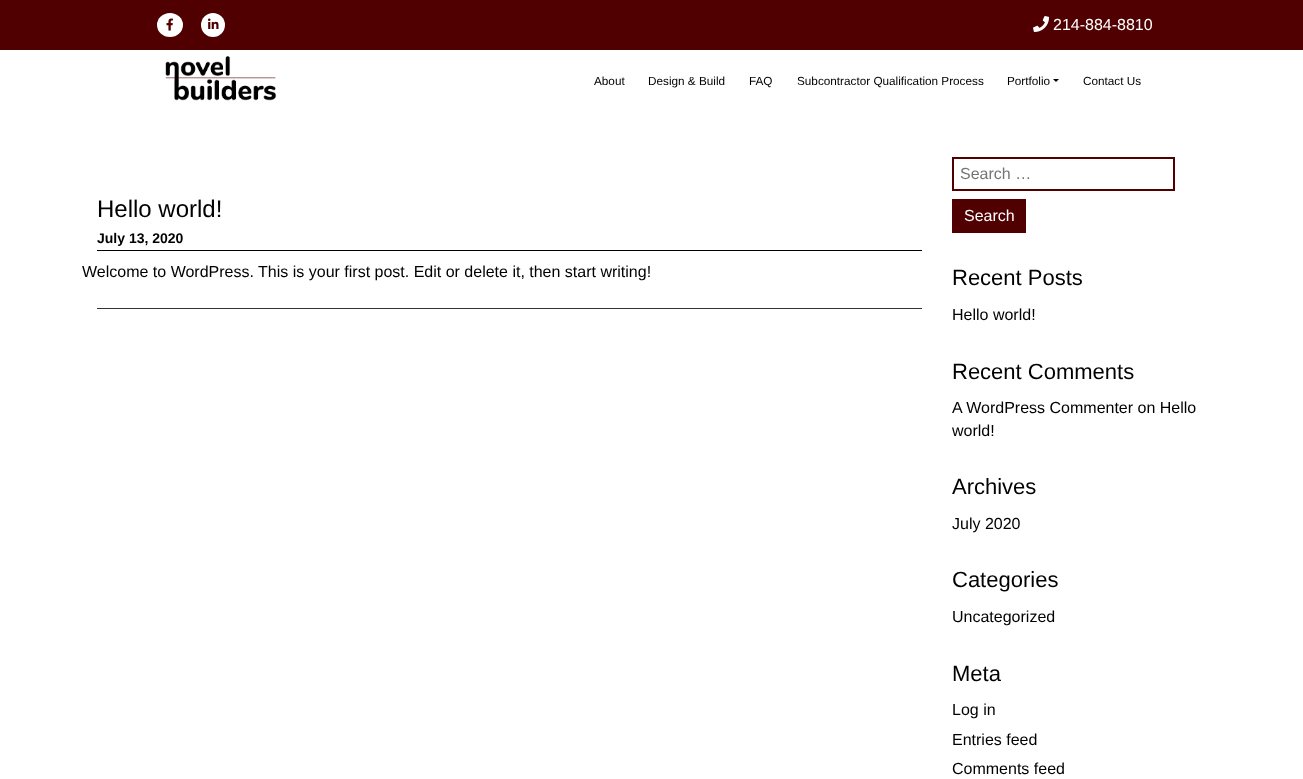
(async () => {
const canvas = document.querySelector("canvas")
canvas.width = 1303
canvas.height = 779
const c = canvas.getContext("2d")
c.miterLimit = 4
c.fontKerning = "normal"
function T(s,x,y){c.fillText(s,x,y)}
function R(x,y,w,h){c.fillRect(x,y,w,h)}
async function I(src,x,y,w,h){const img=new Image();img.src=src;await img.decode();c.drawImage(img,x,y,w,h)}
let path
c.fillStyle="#fff"
R(0,0,1303,779)
c.fillStyle="#500000"
R(0,0,1303,50)
c.fillStyle="#fff"
c.beginPath()
c.ellipse(170,25,13,12,0,0,7)
c.fill()
await I("1.png",166,18,7,13)
c.beginPath()
c.arc(213,25,12,0,7)
c.fill()
await I("2.png",208,18,11,11)
await I("3.png",1033,16,16,16)
c.font="16px Liberation Sans"
T("214-884-8810",1053,30)
await I("4.png",165,56,112,45)
c.font="11.75px Liberation Sans"
c.fillStyle="#000"
T("About",594,85)
T("Design & Build",648,85)
T("FAQ",749,85)
T("Subcontractor Qualification Process",797,85)
T("Portfolio",1007,85)
path = new Path2D("M1053 79h6l-3 3z")
c.fill(path)
T("Contact Us",1083,85)
R(97,250,825,1)
c.font="24px Liberation Sans"
T("Hello world!",97,217)
c.font="bold 14px Liberation Sans"
T("July 13, 2020",97,243)
c.font="16px Liberation Sans"
T("Welcome to WordPress. This is your first post. Edit or delete it, then start writing!",82,277)
c.fillStyle="#333"
R(97,308,825,1)
c.strokeStyle="#500000"
c.lineWidth=2
c.strokeRect(953,158,221,32)
c.fillStyle="#757575"
T("Search …",960,179)
c.fillStyle="#500000"
R(952,199,74,34)
c.fillStyle="#fff"
T("Search",964,221)
c.font="22px Liberation Sans"
c.fillStyle="#000"
T("Recent Posts",952,285)
c.font="16px Liberation Sans"
T("Hello world!",952,320)
c.font="22px Liberation Sans"
T("Recent Comments",952,379)
c.font="16px Liberation Sans"
T("A WordPress Commenter on Hello",952,413)
T("world!",952,436)
c.font="22px Liberation Sans"
T("Archives",952,494)
c.font="16px Liberation Sans"
T("July 2020",952,529)
c.font="22px Liberation Sans"
T("Categories",952,587)
c.font="16px Liberation Sans"
T("Uncategorized",952,622)
c.font="22px Liberation Sans"
T("Meta",952,681)
c.font="16px Liberation Sans"
T("Log in",952,715)
T("Entries feed",952,745)
T("Comments feed",952,774)
})()
